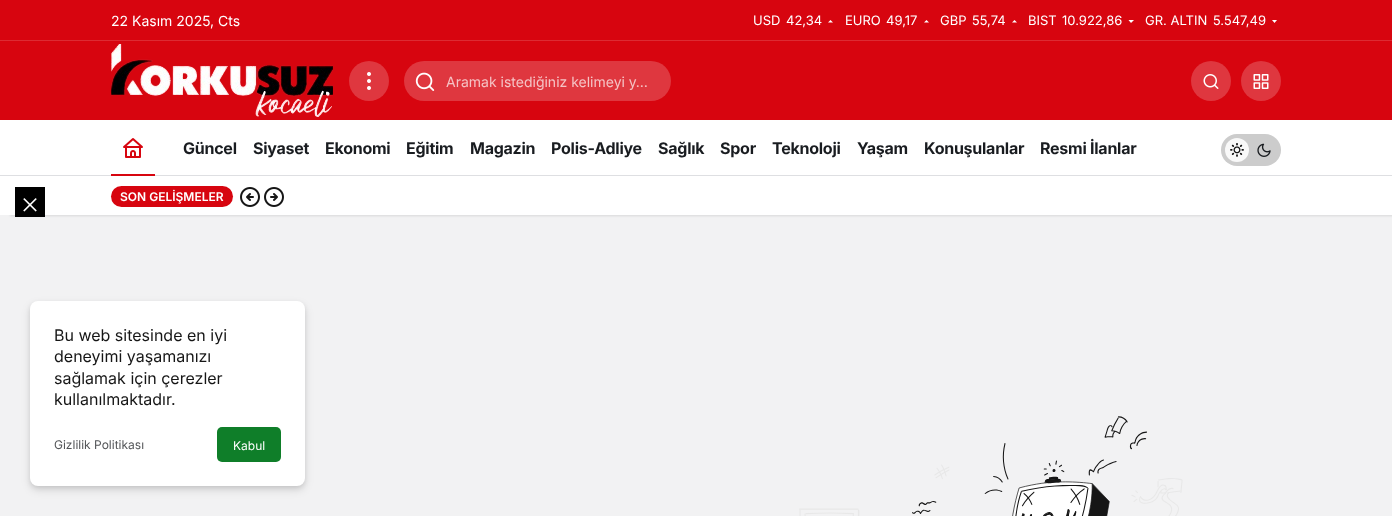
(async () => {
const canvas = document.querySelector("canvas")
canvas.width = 1392
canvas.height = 516
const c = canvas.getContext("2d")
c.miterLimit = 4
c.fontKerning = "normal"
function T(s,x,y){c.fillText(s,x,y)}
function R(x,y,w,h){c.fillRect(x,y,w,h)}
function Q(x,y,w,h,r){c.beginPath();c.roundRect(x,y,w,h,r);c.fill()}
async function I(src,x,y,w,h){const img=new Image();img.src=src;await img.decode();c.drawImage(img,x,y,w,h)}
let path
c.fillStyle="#f2f2f3"
R(0,0,1392,516)
c.fillStyle="#0000001a"
c.filter="blur(1px)"
c.beginPath()
c.rect(10,176,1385,40)
c.fill()
c.filter="none"
c.fillStyle="#fff"
R(0,176,1392,39)
c.fillStyle="#000"
R(15,187,30,30)
await I("1.png",23,198,14,14)
c.fillStyle="#d7050f"
R(0,0,1392,120)
c.font="14px Inter"
c.fillStyle="#fff"
T("22 Kasım 2025, Cts",111,26)
c.font="13px Inter"
T("USD",753,25)
T("42,34",786,25)
path = new Path2D("M828 22.5l2.5-2.5l2.5 2.5z")
c.fill(path)
T("EURO",845,25)
T("49,17",886,25)
path = new Path2D("M924 22.5l2.5-2.5l2.5 2.5z")
c.fill(path)
T("GBP",940,25)
T("55,74",972,25)
path = new Path2D("M1012 22.5l2.5-2.5l2.5 2.5z")
c.fill(path)
T("BIST",1028,25)
T("10.922,86",1062,25)
path = new Path2D("M1134 20l-3 3l-2.5-3z")
c.fill(path)
T("GR. ALTIN",1145,25)
T("5.547,49",1213,25)
path = new Path2D("M1277 20l-2.5 3l-2.5-3z")
c.fill(path)
c.fillStyle="#dd2b33"
R(0,40,1392,1)
await I("2.png",111,44,222,73)
c.fillStyle="#df373f"
c.beginPath()
c.arc(369,81,20,0,7)
c.fill()
await I("3.png",367,72,4,18)
Q(404,61,267,40,20)
await I("4.png",415,72,20,19)
c.font="14px Inter"
c.fillStyle="#f5c3c5"
T("Aramak istediğiniz kelimeyi y…",446,87)
c.fillStyle="#df373f"
c.beginPath()
c.arc(1211,81,20,0,7)
c.fill()
await I("5.png",1203,74,16,15)
c.beginPath()
c.arc(1261,81,20,0,7)
c.fill()
await I("6.png",1253,74,16,15)
c.fillStyle="#fff"
R(0,120,1392,55)
await I("7.png",123,138,20,20)
c.fillStyle="#dedfe2"
R(0,175,1392,1)
c.fillStyle="#d7050f"
R(111,174,44,2)
c.letterSpacing="-0.25px"
c.font="bold 16px Inter"
c.fillStyle="#191c20"
T("Güncel",183,154)
T("Siyaset",253,154)
T("Ekonomi",325,154)
T("Eğitim",406,154)
T("Magazin",470,154)
T("Polis-Adliye",551,154)
T("Sağlık",658,154)
T("Spor",720,154)
T("Teknoloji",772,154)
T("Yaşam",857,154)
T("Konuşulanlar",924,154)
T("Resmi İlanlar",1040,154)
c.fillStyle="#ccc"
Q(1221,134,60,32,16)
await I("9.png",1230,143,14,14)
c.fillStyle="#ffffffde"
c.beginPath()
c.arc(1237,150,12,0,7)
c.fill()
await I("8.png",1230,143,14,14)
await I("10.png",1257,143,14,14)
c.fillStyle="#d7050f"
Q(111,186,122,21,10.5)
c.letterSpacing="0px"
c.font="600 12px Inter"
c.fillStyle="#fff"
T("SON GELİŞMELER",120,201)
await I("11.png",240,187,20,20)
await I("12.png",264,187,20,20)
c.fillStyle="#00000014"
c.filter="blur(2px)"
c.beginPath()
c.roundRect(30,303,275,185,8)
c.fill()
c.filter="none"
c.fillStyle="#0000001f"
c.filter="blur(4px)"
c.beginPath()
c.roundRect(30,305,275,185,8)
c.fill()
c.filter="none"
c.fillStyle="#fff"
Q(30,301,275,185,8)
c.font="16px Inter"
c.fillStyle="#161616"
T("Bu web sitesinde en iyi",54,341)
T("deneyimi yaşamanızı",54,362)
T("sağlamak için çerezler",54,384)
T("kullanılmaktadır.",54,405)
c.font="12px Inter"
c.fillStyle="#535558"
T("Gizlilik Politikası",54,449)
c.fillStyle="#0f7e29"
Q(217,427,64,35,5)
c.fillStyle="#fff"
T("Kabul",233,450)
await I("13.png",799,416,384,100)
})()
